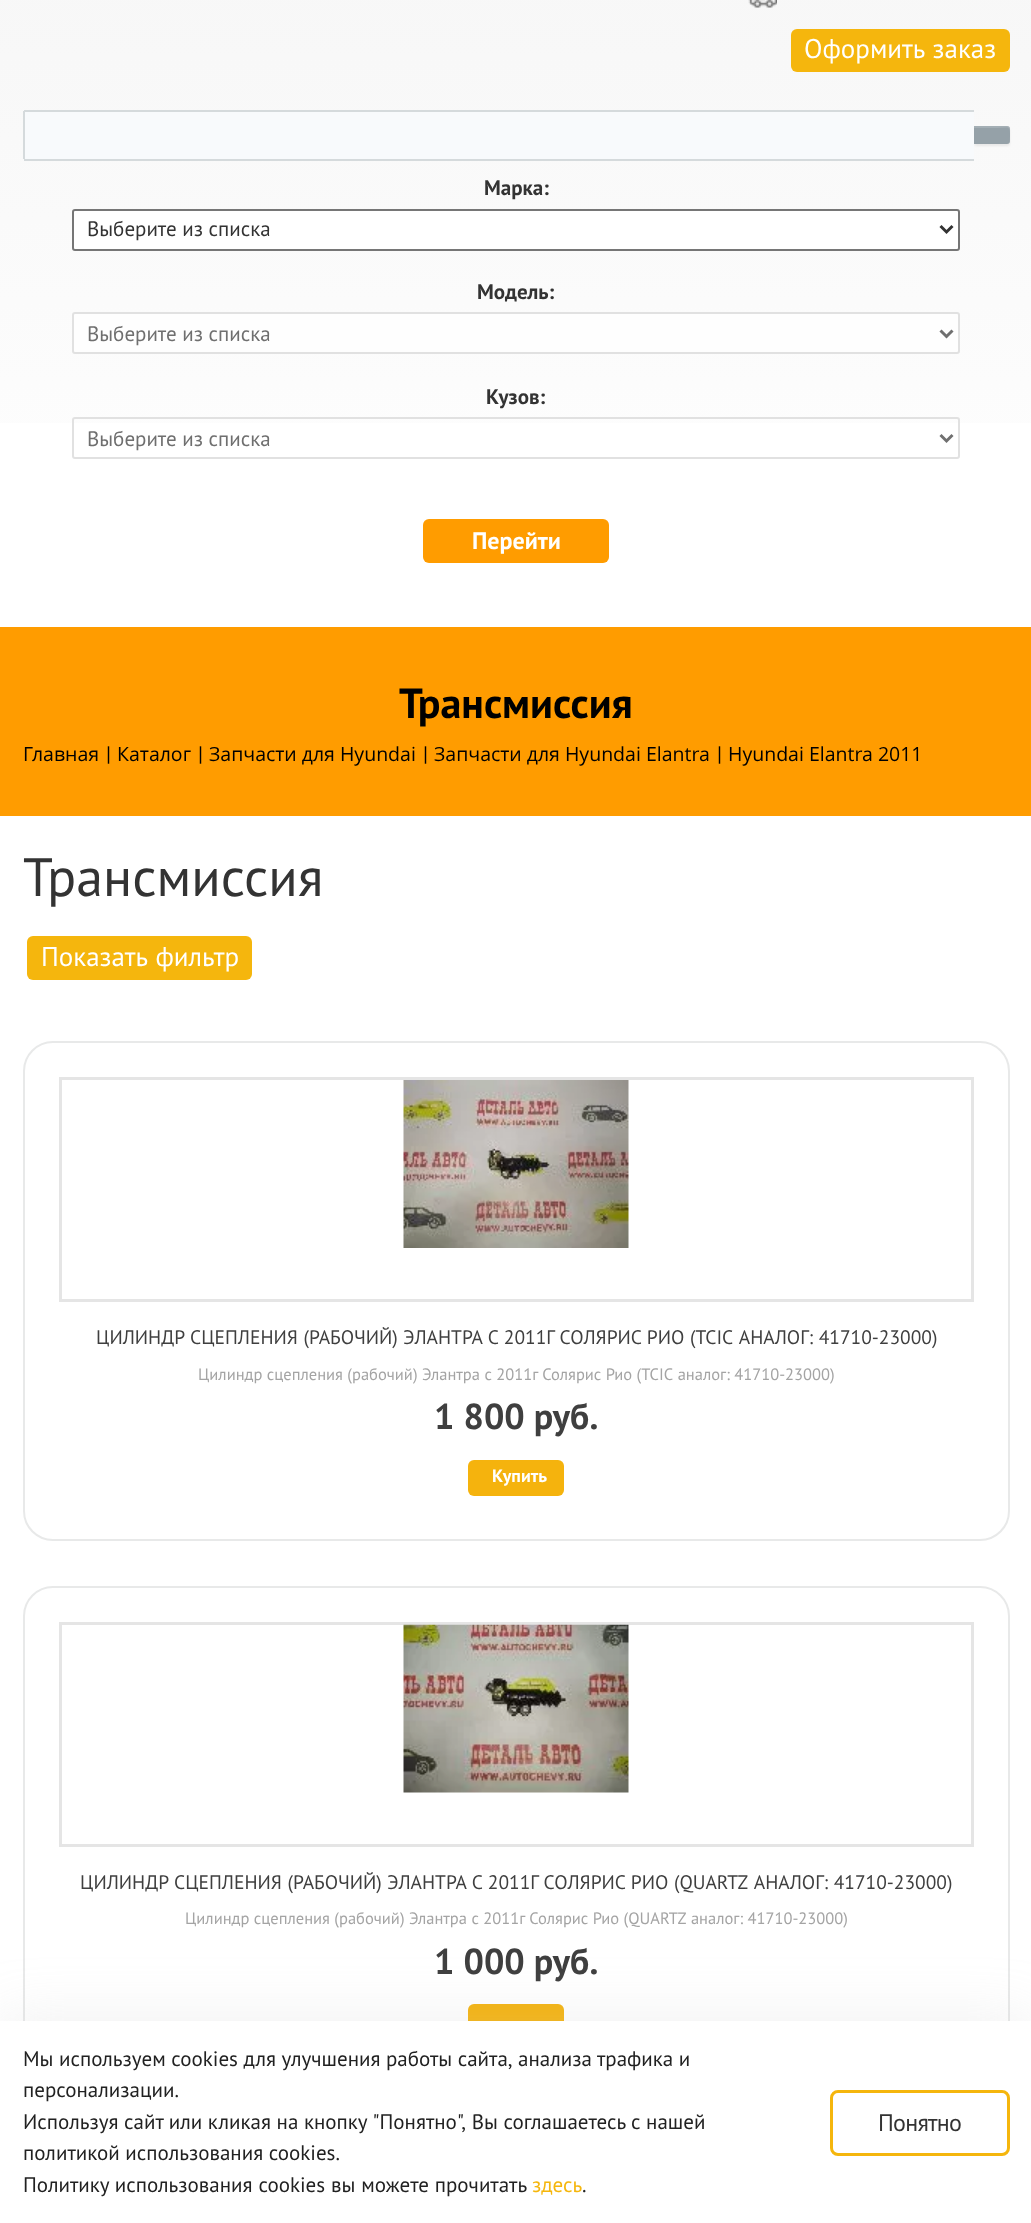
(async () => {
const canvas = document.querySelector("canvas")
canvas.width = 1031
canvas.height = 2223
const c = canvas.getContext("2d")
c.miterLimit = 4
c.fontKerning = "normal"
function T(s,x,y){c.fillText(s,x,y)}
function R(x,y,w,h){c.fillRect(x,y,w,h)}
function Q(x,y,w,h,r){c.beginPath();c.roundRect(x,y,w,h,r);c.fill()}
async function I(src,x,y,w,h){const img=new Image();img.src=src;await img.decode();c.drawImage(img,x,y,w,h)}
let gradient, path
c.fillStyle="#fff"
R(0,0,1031,2223)
gradient = c.createLinearGradient(516,-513,516,627)
gradient.addColorStop(0,"#f1f1f1")
gradient.addColorStop(1,"#fff")
c.fillStyle = gradient
R(0,0,1031,423)
await I("1.png",748,0,29,8)
c.fillStyle="#f5b60d"
Q(791,29,219,43,6)
c.wordSpacing="1px"
c.font="27px PT Sans"
c.fillStyle="#fff"
T("Оформить заказ",804,58)
c.fillStyle="#00000012"
c.filter="blur(1px)"
c.beginPath()
c.roundRect(974,128,36,18,3)
c.fill()
c.filter="none"
c.fillStyle="#f8fafc"
c.beginPath()
c.roundRect(23,110,951,51,[3,0,0,3])
c.fill()
c.fillStyle="#d5dadc"
R(24,110,950,2)
R(24,159,950,2)
R(23,111,2,48)
c.fillStyle="#95a1a8"
c.beginPath()
c.roundRect(974,126,36,18,[0,3,3,0])
c.fill()
c.fillStyle="#ffffff26"
path = new Path2D("M974 128h23l9.5-.5c1 0 2 .5 2.5 1c1.5 1.5 1 11 .5 14l.5-1.5v-12c0-1.5-1.5-3-3-3h-33z")
c.fill(path)
c.wordSpacing="0px"
c.font="bold 21px PT Sans"
c.fillStyle="#333"
T("Марка:",484,195)
c.fillStyle="#fff"
c.beginPath()
c.roundRect(73,210,886,40,2)
c.fill()
c.strokeStyle="#767676"
c.lineWidth=2
c.stroke()
path = new Path2D("M940.5 226l6 6l6-6")
c.strokeStyle="#333"
c.lineWidth=3
c.stroke(path)
c.font="21px PT Sans"
c.fillStyle="#333"
T("Выберите из списка",87,236)
c.font="bold 21px PT Sans"
T("Модель:",477,299)
c.fillStyle="#fefefe"
c.beginPath()
c.roundRect(73,313,886,40,2)
c.fill()
c.strokeStyle="#e1e1e1"
c.lineWidth=2
c.stroke()
path = new Path2D("M940.5 330.5l6 6l6-6")
c.strokeStyle="#6f6f6f"
c.lineWidth=3
c.stroke(path)
c.font="21px PT Sans"
c.fillStyle="#6f6f6f"
T("Выберите из списка",87,341)
c.font="bold 21px PT Sans"
c.fillStyle="#333"
T("Кузов:",486,404)
c.beginPath()
c.roundRect(73,418,886,40,2)
c.strokeStyle="#e1e1e1"
c.lineWidth=2
c.stroke()
path = new Path2D("M940.5 435l6 6l6-6")
c.strokeStyle="#707070"
c.lineWidth=3
c.stroke(path)
c.font="21px PT Sans"
c.fillStyle="#6f6f6f"
T("Выберите из списка",87,446)
c.fillStyle="#ff9c00"
Q(423,519,186,44,6)
c.font="bold 24px PT Sans"
c.fillStyle="#fff"
T("Перейти",472,549)
c.fillStyle="#ff9c00"
R(0,627,1031,189)
c.font="bold 42px PT Sans"
c.fillStyle="#000"
T("Трансмиссия",399,718)
c.font="19.5px Open Sans"
T("Главная",23,761)
c.font="21px PT Sans"
T("|",106,761)
c.font="19.5px Open Sans"
T("Каталог",117,761)
c.font="21px PT Sans"
T("|",198,761)
c.font="19.5px Open Sans"
T("Запчасти для Hyundai",209,761)
c.font="21px PT Sans"
T("|",423,761)
c.font="19.5px Open Sans"
T("Запчасти для Hyundai Elantra",434,761)
c.font="21px PT Sans"
T("|",717,761)
c.font="19.5px Open Sans"
T("Hyundai Elantra 2011",728,761)
c.font="54px PT Sans"
c.fillStyle="#333"
T("Трансмиссия",23,896)
c.fillStyle="#f5b60d"
Q(27,936,225,44,6)
c.wordSpacing="1px"
c.font="27px PT Sans"
c.fillStyle="#fff"
T("Показать фильтр",41,966)
c.beginPath()
c.roundRect(24,1042,985,498,29)
c.strokeStyle="#e8e9e9"
c.lineWidth=2
c.stroke()
c.strokeStyle="#e5e5e5"
c.lineWidth=3
c.strokeRect(60.5,1078.5,912,222)
await I("2.png",403,1080,226,168)
c.wordSpacing="0.4px"
c.font="19.5px PT Sans"
c.fillStyle="#3f3f3f"
T("ЦИЛИНДР СЦЕПЛЕНИЯ (РАБОЧИЙ) ЭЛАНТРА С 2011Г СОЛЯРИС РИО (TCIC АНАЛОГ: 41710-23000)",96,1344)
c.wordSpacing="0px"
c.font="16.5px PT Sans"
c.fillStyle="#a4a4a4"
T("Цилиндр сцепления (рабочий) Элантра с 2011г Солярис Рио (TCIC аналог: 41710-23000)",198,1380)
c.font="bold 36px PT Sans"
c.fillStyle="#3f3f3f"
T("1 800 руб.",434,1429)
c.fillStyle="#f5b30d"
Q(468,1460,96,36,6)
c.font="bold 18px PT Sans"
c.fillStyle="#fff"
T("Купить",492,1482)
c.beginPath()
c.roundRect(24,1587,985,497,29)
c.strokeStyle="#e8e9e9"
c.lineWidth=2
c.stroke()
c.strokeStyle="#e5e5e5"
c.lineWidth=3
c.strokeRect(60.5,1623.5,912,222)
await I("3.png",403,1624,226,169)
c.wordSpacing="0.4px"
c.font="19.5px PT Sans"
c.fillStyle="#3f3f3f"
T("ЦИЛИНДР СЦЕПЛЕНИЯ (РАБОЧИЙ) ЭЛАНТРА С 2011Г СОЛЯРИС РИО (QUARTZ АНАЛОГ: 41710-23000)",80,1889)
c.wordSpacing="0px"
c.font="16.5px PT Sans"
c.fillStyle="#a4a4a4"
T("Цилиндр сцепления (рабочий) Элантра с 2011г Солярис Рио (QUARTZ аналог: 41710-23000)",185,1924)
c.font="bold 36px PT Sans"
c.fillStyle="#3f3f3f"
T("1 000 руб.",434,1974)
c.fillStyle="#f5b30d"
Q(468,2004,96,36,6)
c.fillStyle="#c4c4c440"
c.filter="blur(30px)"
c.beginPath()
c.rect(0,2021,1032,202)
c.fill()
c.filter="none"
c.fillStyle="#fff"
R(0,2021,1031,202)
c.wordSpacing="-0.1px"
c.font="21px PT Sans"
c.fillStyle="#212121"
T("Мы используем cookies для улучшения работы сайта, анализа трафика и",23,2066)
c.wordSpacing="0px"
T("персонализации.",23,2097)
T("Используя сайт или кликая на кнопку \"Понятно\", Вы соглашаетесь с нашей",23,2129)
T("политикой использования cookies.",23,2160)
c.wordSpacing="0.25px"
T("Политику использования cookies вы можете прочитать",23,2192)
c.wordSpacing="0px"
c.fillStyle="#f5b60d"
T("здесь",532,2192)
c.fillStyle="#212121"
T(".",582,2192)
c.beginPath()
c.roundRect(831.5,2091.5,177,63,6.5)
c.strokeStyle="#f5b60d"
c.stroke()
c.letterSpacing="-0.75px"
c.font="24px PT Sans"
c.fillStyle="#333"
T("Понятно",878,2131)
})()
